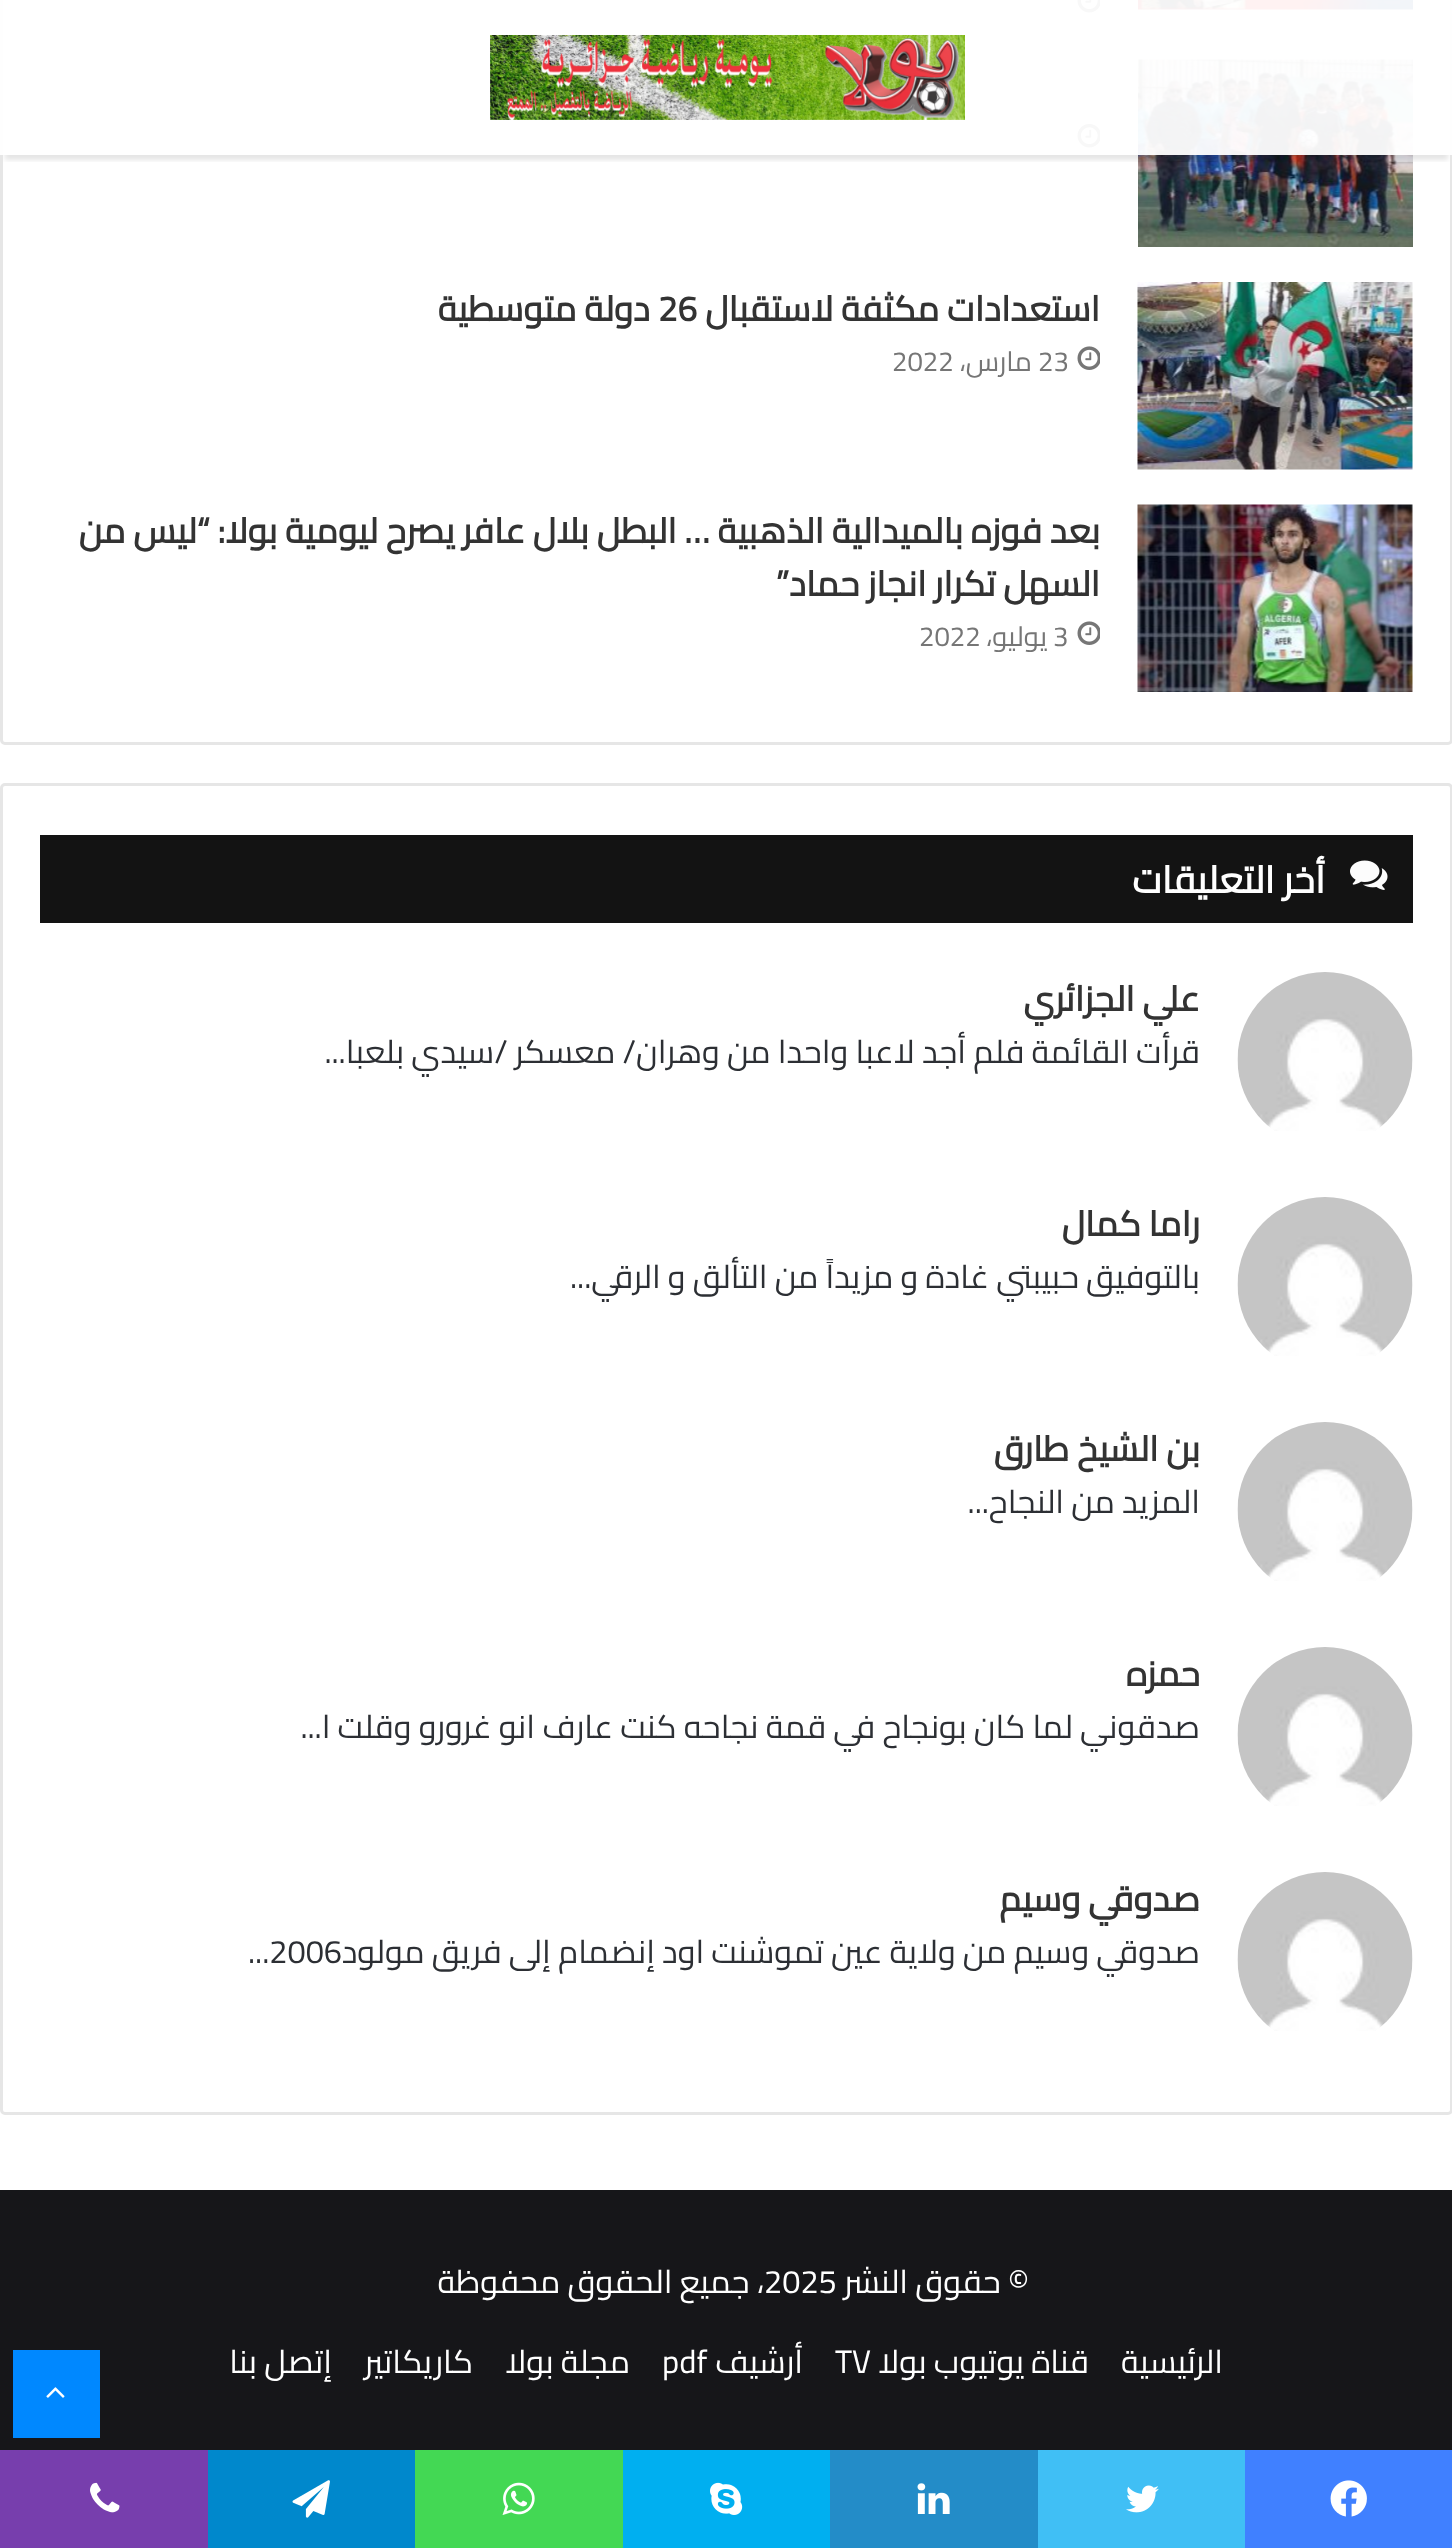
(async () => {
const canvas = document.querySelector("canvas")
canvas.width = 1452
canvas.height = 2548
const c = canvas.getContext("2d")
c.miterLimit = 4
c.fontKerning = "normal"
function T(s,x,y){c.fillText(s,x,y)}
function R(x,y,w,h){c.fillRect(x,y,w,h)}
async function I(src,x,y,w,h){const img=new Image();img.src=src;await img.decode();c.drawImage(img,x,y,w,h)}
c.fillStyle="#fff"
R(0,0,1452,2548)
c.beginPath()
c.roundRect(1.5,-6.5,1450,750,3.5)
c.strokeStyle="#e6e6e6"
c.lineWidth=3
c.stroke()
await I("2.png",1138,0,275,10)
await I("3.png",1077,0,23,13)
await I("4.png",1138,59,275,188)
await I("5.png",1077,123,23,25)
c.save()
c.beginPath()
c.rect(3,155,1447,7)
c.clip()
c.fillStyle="#0000001a"
c.filter="blur(2.5px)"
c.beginPath()
c.rect(5,15,1443,145)
c.fill()
c.filter="none"
c.restore()
c.fillStyle="#fffffff2"
R(0,0,1452,155)
await I("1.png",490,35,475,85)
await I("6.png",1137,282,276,188)
c.direction="rtl"
c.font="bold 35px Cairo"
c.fillStyle="#333"
T("استعدادات مكثفة لاستقبال",1100,321)
c.direction="ltr"
T("26",658,321)
c.direction="rtl"
T("دولة متوسطية",650,321)
await I("7.png",1077,346,23,24)
c.direction="ltr"
c.font="27.5px Cairo"
c.fillStyle="#767676"
T("23",1038,371)
c.direction="rtl"
T("مارس،",1032,371)
c.direction="ltr"
T("2022",892,371)
await I("8.png",1137,504,276,188)
c.direction="rtl"
c.font="bold 35px Cairo"
c.fillStyle="#333"
T("بعد فوزه بالميدالية الذهبية … البطل بلال عافر يصرح ليومية بولا:",1100,543)
T("“ليس من",210,543)
T("السهل تكرار انجاز حماد”",1100,596)
await I("7.png",1077,621,23,24)
c.direction="ltr"
c.font="27.5px Cairo"
c.fillStyle="#767676"
T("3",1053,646)
c.direction="rtl"
T("يوليو،",1047,646)
c.direction="ltr"
T("2022",919,646)
c.beginPath()
c.roundRect(1.5,784.5,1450,1329,3.5)
c.stroke()
c.fillStyle="#131313"
R(40,835,1373,88)
await I("9.png",1350,860,38,30)
c.direction="rtl"
c.font="bold 37.5px Cairo"
c.fillStyle="#fff"
T("أخر التعليقات",1325,893)
await I("10.png",1237,972,176,159)
c.font="bold 35px Cairo"
c.fillStyle="#333"
T("علي الجزائري",1200,1011)
c.font="32.5px Cairo"
c.fillStyle="#2c2f34"
T("قرأت القائمة فلم أجد لاعبا واحدا من وهران/ معسكر /سيدي بلعبا...",1200,1063)
await I("10.png",1237,1197,176,159)
c.font="bold 35px Cairo"
c.fillStyle="#333"
T("راما كمال",1200,1236)
c.font="32.5px Cairo"
c.fillStyle="#2c2f34"
T("بالتوفيق حبيبتي غادة و مزيداً من التألق و الرقي...",1200,1288)
await I("11.png",1237,1422,176,159)
c.font="bold 35px Cairo"
c.fillStyle="#333"
T("بن الشيخ طارق",1200,1461)
c.font="32.5px Cairo"
c.fillStyle="#2c2f34"
T("المزيد من النجاح...",1200,1513)
await I("12.png",1237,1647,176,159)
c.font="bold 35px Cairo"
c.fillStyle="#333"
T("حمزه",1200,1686)
c.font="32.5px Cairo"
c.fillStyle="#2c2f34"
T("صدقوني لما كان بونجاح في قمة نجاحه كنت عارف انو غرورو وقلت ا...",1200,1738)
await I("13.png",1237,1872,176,159)
c.font="bold 35px Cairo"
c.fillStyle="#333"
T("صدوقي وسيم",1200,1911)
c.font="32.5px Cairo"
c.fillStyle="#2c2f34"
T("صدوقي وسيم من ولاية عين تموشنت اود إنضمام إلى فريق مولود",1200,1963)
c.direction="ltr"
T("...2006",248,1963)
c.fillStyle="#161619"
R(0,2190,1452,260)
c.direction="rtl"
c.fillStyle="#fff"
T("© حقوق النشر",1029,2293)
c.direction="ltr"
T("2025",764,2293)
c.direction="rtl"
T("، جميع الحقوق محفوظة",764,2293)
T("الرئيسية",1223,2373)
T("قناة يوتيوب بولا",1089,2373)
c.direction="ltr"
T("TV",835,2373)
c.direction="rtl"
T("أرشيف",803,2373)
c.direction="ltr"
T("pdf",662,2373)
c.direction="rtl"
T("مجلة بولا",630,2373)
T("كاريكاتير",473,2373)
T("إتصل بنا",332,2373)
c.fillStyle="#08f"
R(13,2350,87,88)
await I("14.png",46,2387,19,11)
c.fillStyle="#4080ff"
R(1245,2450,207,98)
await I("15.png",1330,2480,37,37)
c.fillStyle="#40bff5"
R(1038,2450,207,98)
await I("16.png",1126,2485,33,28)
c.fillStyle="#238cc8"
R(830,2450,208,98)
await I("17.png",917,2483,33,31)
c.fillStyle="#00aff0"
R(623,2450,207,98)
await I("18.png",710,2482,33,33)
c.fillStyle="#43d854"
R(415,2450,208,98)
await I("19.png",502,2482,33,33)
c.fillStyle="#08c"
R(208,2450,207,98)
await I("20.png",292,2480,38,38)
c.fillStyle="#773ead"
R(0,2450,208,98)
await I("21.png",90,2482,30,31)
})()
